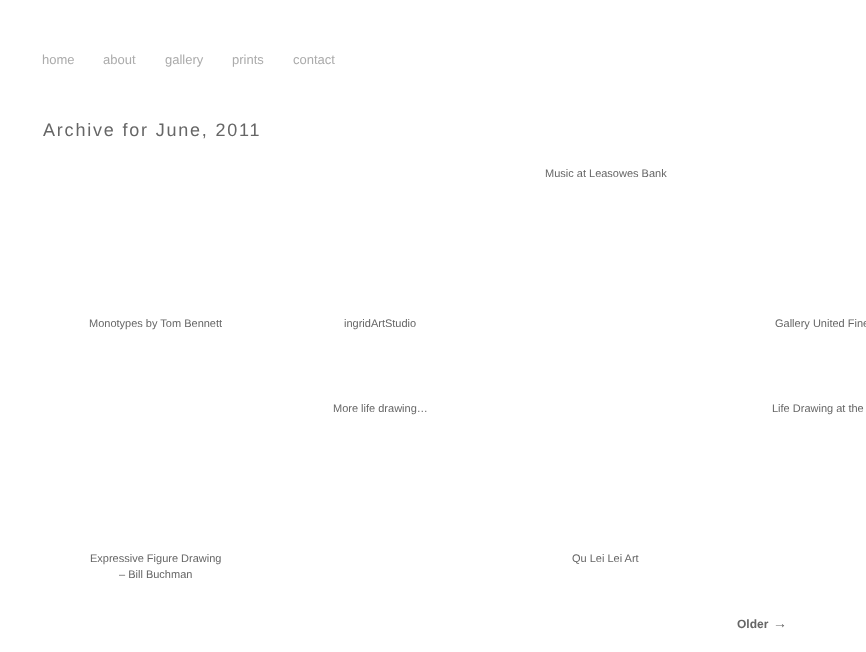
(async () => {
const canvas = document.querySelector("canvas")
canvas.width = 866
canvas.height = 652
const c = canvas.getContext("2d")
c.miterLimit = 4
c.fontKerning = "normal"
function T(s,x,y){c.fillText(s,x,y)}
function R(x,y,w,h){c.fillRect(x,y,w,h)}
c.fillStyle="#fff"
R(0,0,866,652)
c.font="13px Liberation Sans"
c.fillStyle="#ababab"
T("home",42,64)
T("about",103,64)
T("gallery",165,64)
T("prints",232,64)
T("contact",293,64)
c.letterSpacing="1.8px"
c.font="18px Liberation Sans"
c.fillStyle="#666"
T("Archive for June, 2011",43,136)
c.letterSpacing="0px"
c.font="11px Liberation Sans"
T("Music at Leasowes Bank",545,177)
T("Monotypes by Tom Bennett",89,327)
T("ingridArtStudio",344,327)
T("Gallery United Fine",775,327)
T("More life drawing…",333,412)
T("Life Drawing at the",772,412)
T("Expressive Figure Drawing",90,562)
T("– Bill Buchman",119,578)
T("Qu Lei Lei Art",572,562)
c.font="bold 12px Liberation Sans"
T("Older",737,628)
c.font="bold 14px Liberation Sans"
T("→",773,628)
})()
